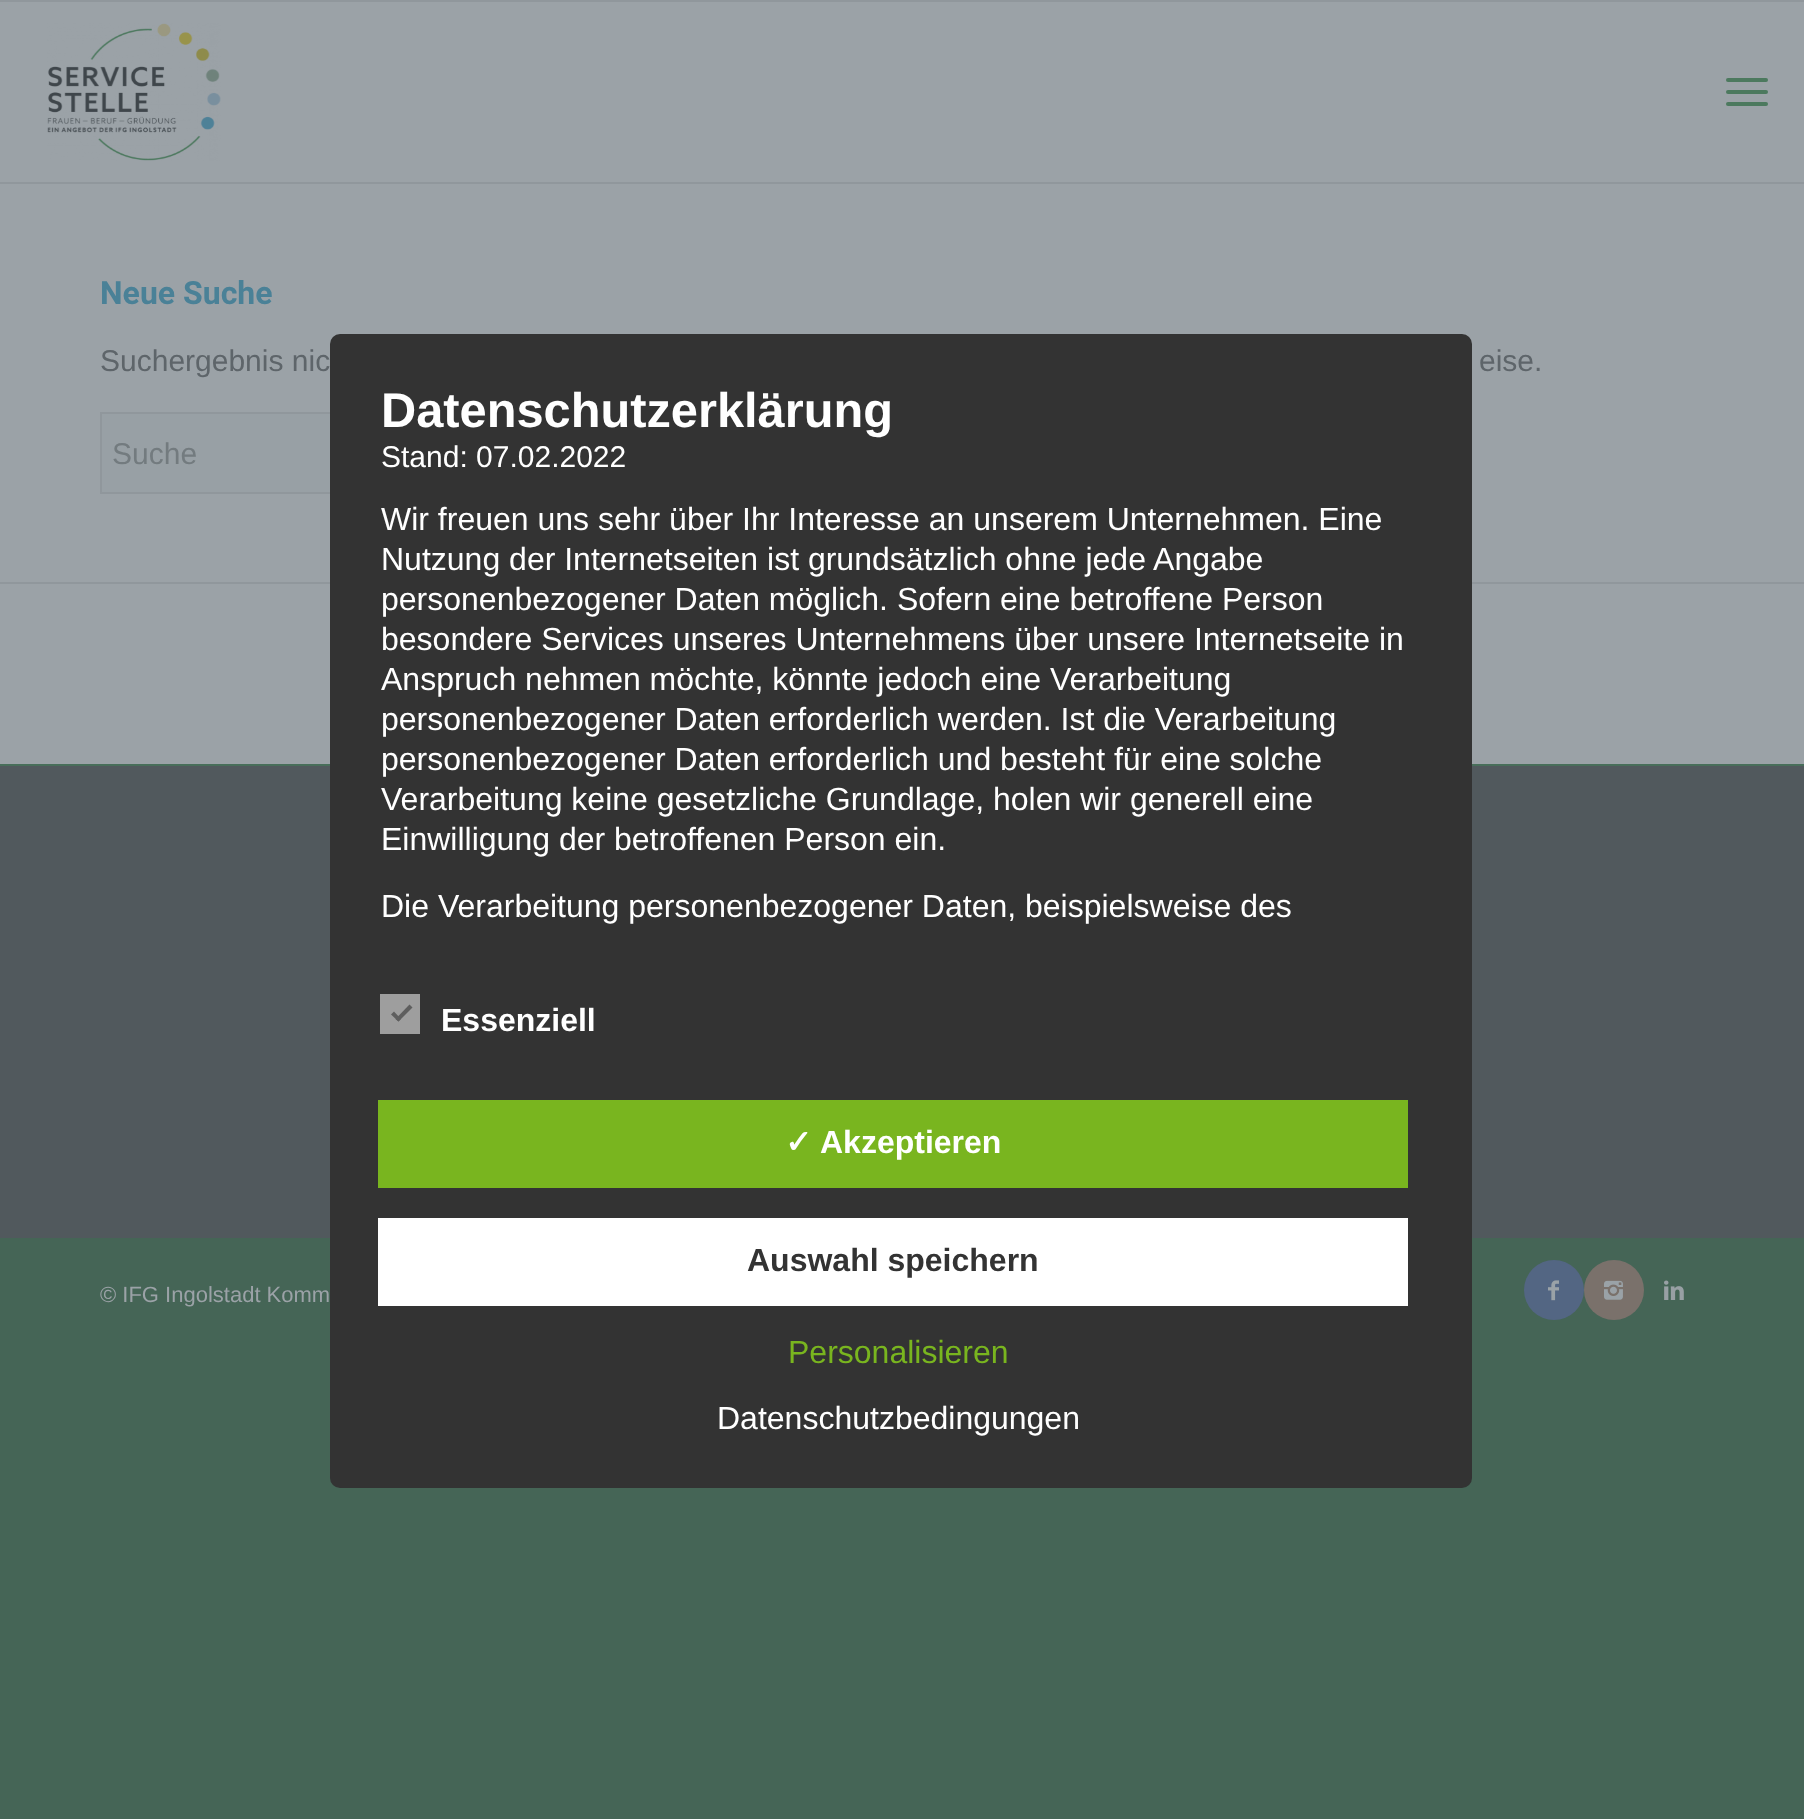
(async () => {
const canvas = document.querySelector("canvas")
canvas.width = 1804
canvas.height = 1819
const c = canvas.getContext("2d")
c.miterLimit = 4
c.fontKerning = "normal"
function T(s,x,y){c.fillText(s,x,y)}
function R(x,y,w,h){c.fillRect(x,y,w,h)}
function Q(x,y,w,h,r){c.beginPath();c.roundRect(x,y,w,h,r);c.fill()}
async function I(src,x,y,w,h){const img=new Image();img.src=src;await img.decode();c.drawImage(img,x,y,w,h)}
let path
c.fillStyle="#456556"
R(0,0,1804,1819)
c.fillStyle="#90979c"
R(0,0,1804,2)
c.fillStyle="#9ba2a7"
R(0,2,1804,762)
c.fillStyle="#90979c"
R(0,182,1804,2)
await I("1.png",47,23,174,138)
c.fillStyle="#4c795e"
Q(1726,90,42,4,2)
Q(1726,78,42,4,2)
Q(1726,102,42,4,2)
c.font="bold 32px Roboto"
c.fillStyle="#4a8197"
T("Neue Suche",100,304)
c.font="30px Liberation Sans"
c.fillStyle="#5e656a"
T("Suchergebnis nic",100,371)
T("eise.",1479,371)
c.fillStyle="#98a0a5"
R(102,414,228,78)
c.strokeStyle="#90979c"
c.lineWidth=2
c.strokeRect(101,413,598,80)
c.fillStyle="#737b7f"
T("Suche",112,464)
c.fillStyle="#90979c"
R(0,582,1804,2)
c.fillStyle="#51595d"
R(0,766,1804,472)
c.fillStyle="#486e5a"
R(0,764,1804,2)
c.font="22px Liberation Sans"
c.fillStyle="#9ba2a7"
T("© IFG Ingolstadt Komm",100,1302)
c.fillStyle="#536683"
c.beginPath()
c.arc(1554,1290,30,0,7)
c.fill()
await I("2.png",1548,1280,11,21)
c.fillStyle="#7a716b"
c.beginPath()
c.arc(1614,1290,30,0,7)
c.fill()
await I("3.png",1604,1280,19,20)
await I("4.png",1664,1280,20,20)
c.fillStyle="#333"
Q(330,334,1142,1154,10)
c.font="bold 48.75px Liberation Sans"
c.fillStyle="#fff"
T("Datenschutzerklärung",381,427)
c.font="30px Liberation Sans"
T("Stand: 07.02.2022",381,467)
c.font="32px Liberation Sans"
T("Wir freuen uns sehr über Ihr Interesse an unserem Unternehmen. Eine",381,530)
T("Nutzung der Internetseiten ist grundsätzlich ohne jede Angabe",381,570)
T("personenbezogener Daten möglich. Sofern eine betroffene Person",381,610)
T("besondere Services unseres Unternehmens über unsere Internetseite in",381,650)
T("Anspruch nehmen möchte, könnte jedoch eine Verarbeitung",381,690)
T("personenbezogener Daten erforderlich werden. Ist die Verarbeitung",381,730)
T("personenbezogener Daten erforderlich und besteht für eine solche",381,770)
T("Verarbeitung keine gesetzliche Grundlage, holen wir generell eine",381,810)
T("Einwilligung der betroffenen Person ein.",381,850)
T("Die Verarbeitung personenbezogener Daten, beispielsweise des",381,917)
c.fillStyle="#9e9e9e"
R(380,994,40,40)
c.fillStyle="#5e5e5e"
path = new Path2D("M409.5 1004.5l3 3l-14 14l-3-2.5z")
c.fill(path)
path = new Path2D("M394 1011.5l7 7.5l-2.5 2.5l-7.5-7z")
c.fill(path)
c.font="bold 32px Liberation Sans"
c.fillStyle="#fff"
T("Essenziell",441,1031)
c.fillStyle="#79b51f"
R(378,1100,1030,88)
c.font="bold 32px DejaVu Sans"
c.fillStyle="#fff"
T("✓",785,1153)
c.font="bold 32px Liberation Sans"
T("Akzeptieren",820,1153)
R(378,1218,1030,88)
c.fillStyle="#333"
T("Auswahl speichern",747,1271)
c.font="32px Liberation Sans"
c.fillStyle="#79b51f"
T("Personalisieren",788,1363)
c.fillStyle="#fff"
T("Datenschutzbedingungen",717,1429)
})()
